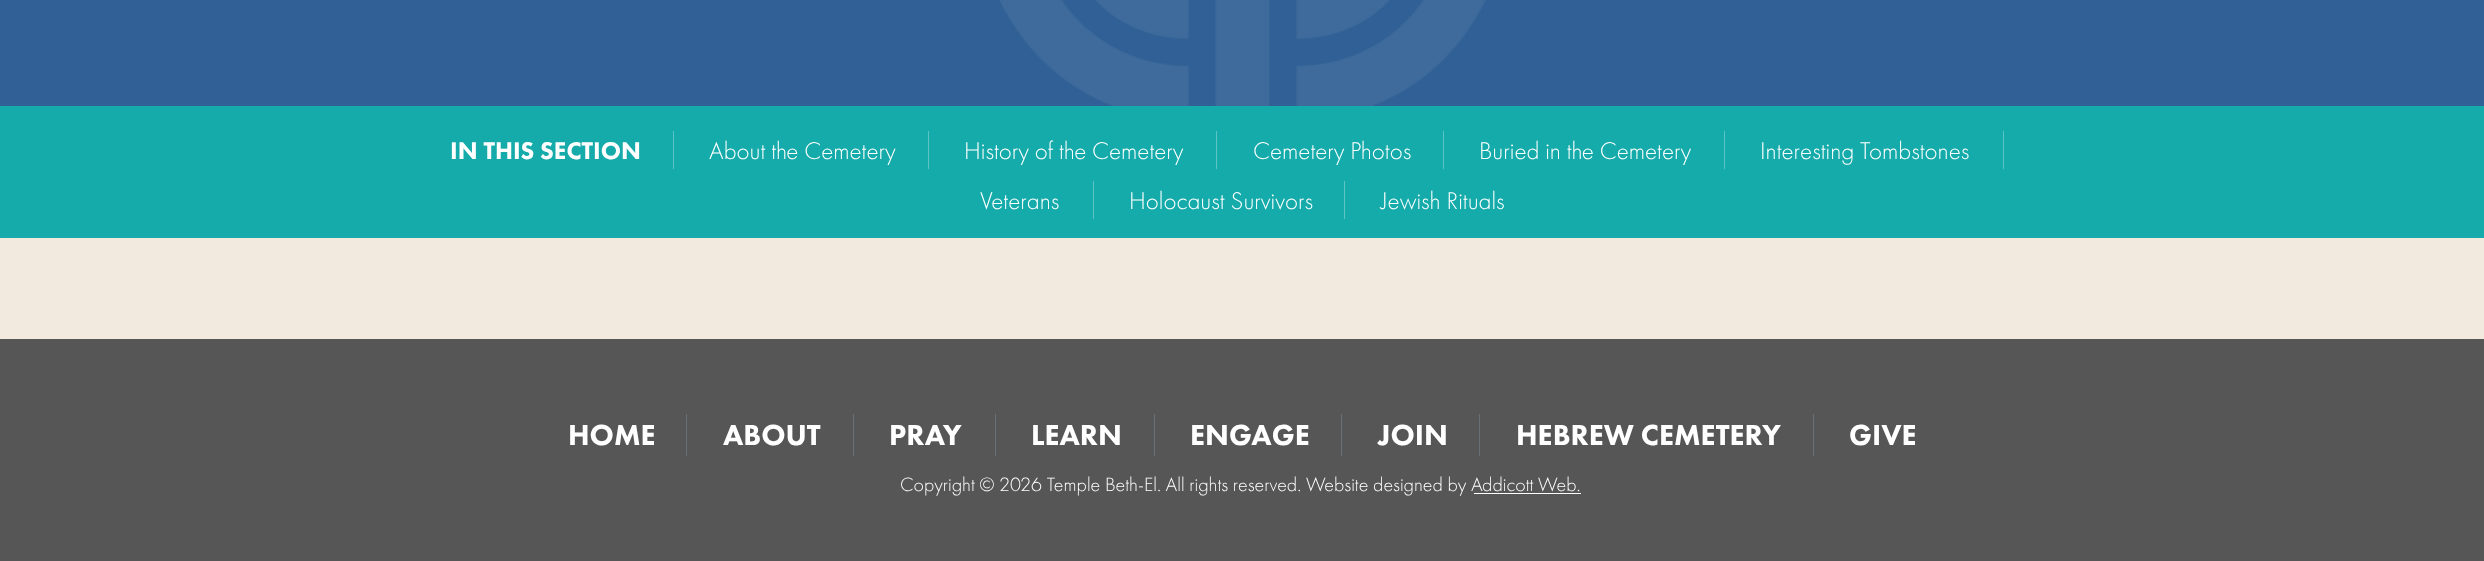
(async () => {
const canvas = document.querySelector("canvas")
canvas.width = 2484
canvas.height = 561
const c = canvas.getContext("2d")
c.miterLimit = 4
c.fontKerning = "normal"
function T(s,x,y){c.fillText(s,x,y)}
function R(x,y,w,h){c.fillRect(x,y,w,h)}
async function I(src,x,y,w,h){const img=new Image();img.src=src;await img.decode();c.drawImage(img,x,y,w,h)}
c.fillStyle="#565656"
R(0,0,2484,561)
c.fillStyle="#306095"
R(0,0,2484,106)
await I("1.png",999,0,487,106)
c.fillStyle="#16abab"
R(0,106,2484,132)
c.fillStyle="#5cc4c4"
R(673,131,1,38)
c.font="900 25px Futura PT"
c.fillStyle="#fff"
T("IN THIS SECTION",450,159)
c.fillStyle="#5cc4c4"
R(928,131,1,38)
c.font="300 25px Futura PT"
c.fillStyle="#fff"
T("About the Cemetery",709,159)
c.fillStyle="#5cc4c4"
R(1216,131,1,38)
c.fillStyle="#fff"
T("History of the Cemetery",964,159)
c.fillStyle="#5cc4c4"
R(1443,131,1,38)
c.fillStyle="#fff"
T("Cemetery Photos",1253,159)
c.fillStyle="#5cc4c4"
R(1724,131,1,38)
c.fillStyle="#fff"
T("Buried in the Cemetery",1479,159)
c.fillStyle="#5cc4c4"
R(2003,131,1,38)
c.fillStyle="#fff"
T("Interesting Tombstones",1760,159)
c.fillStyle="#5cc4c4"
R(1093,181,1,38)
c.fillStyle="#fff"
T("Veterans",980,209)
c.fillStyle="#5cc4c4"
R(1344,181,1,38)
c.fillStyle="#fff"
T("Holocaust Survivors",1129,209)
T("Jewish Rituals",1381,209)
c.fillStyle="#f2eade"
R(0,238,2484,101)
c.fillStyle="#667077"
R(686,414,1,42)
c.font="900 30px Futura PT"
c.fillStyle="#fff"
T("HOME",568,445)
c.fillStyle="#667077"
R(853,414,1,42)
c.fillStyle="#fff"
T("ABOUT",723,445)
c.fillStyle="#667077"
R(995,414,1,42)
c.fillStyle="#fff"
T("PRAY",889,445)
c.fillStyle="#667077"
R(1154,414,1,42)
c.fillStyle="#fff"
T("LEARN",1031,445)
c.fillStyle="#667077"
R(1341,414,1,42)
c.fillStyle="#fff"
T("ENGAGE",1190,445)
c.fillStyle="#667077"
R(1479,414,1,42)
c.fillStyle="#fff"
T("JOIN",1378,445)
c.fillStyle="#667077"
R(1813,414,1,42)
c.fillStyle="#fff"
T("HEBREW CEMETERY",1516,445)
T("GIVE",1849,445)
c.font="300 20px Futura PT"
T("Copyright © 2026 Temple Beth-El. All rights reserved. Website designed by Addicott Web.",900,491)
R(1474,493,107,1)
})()
